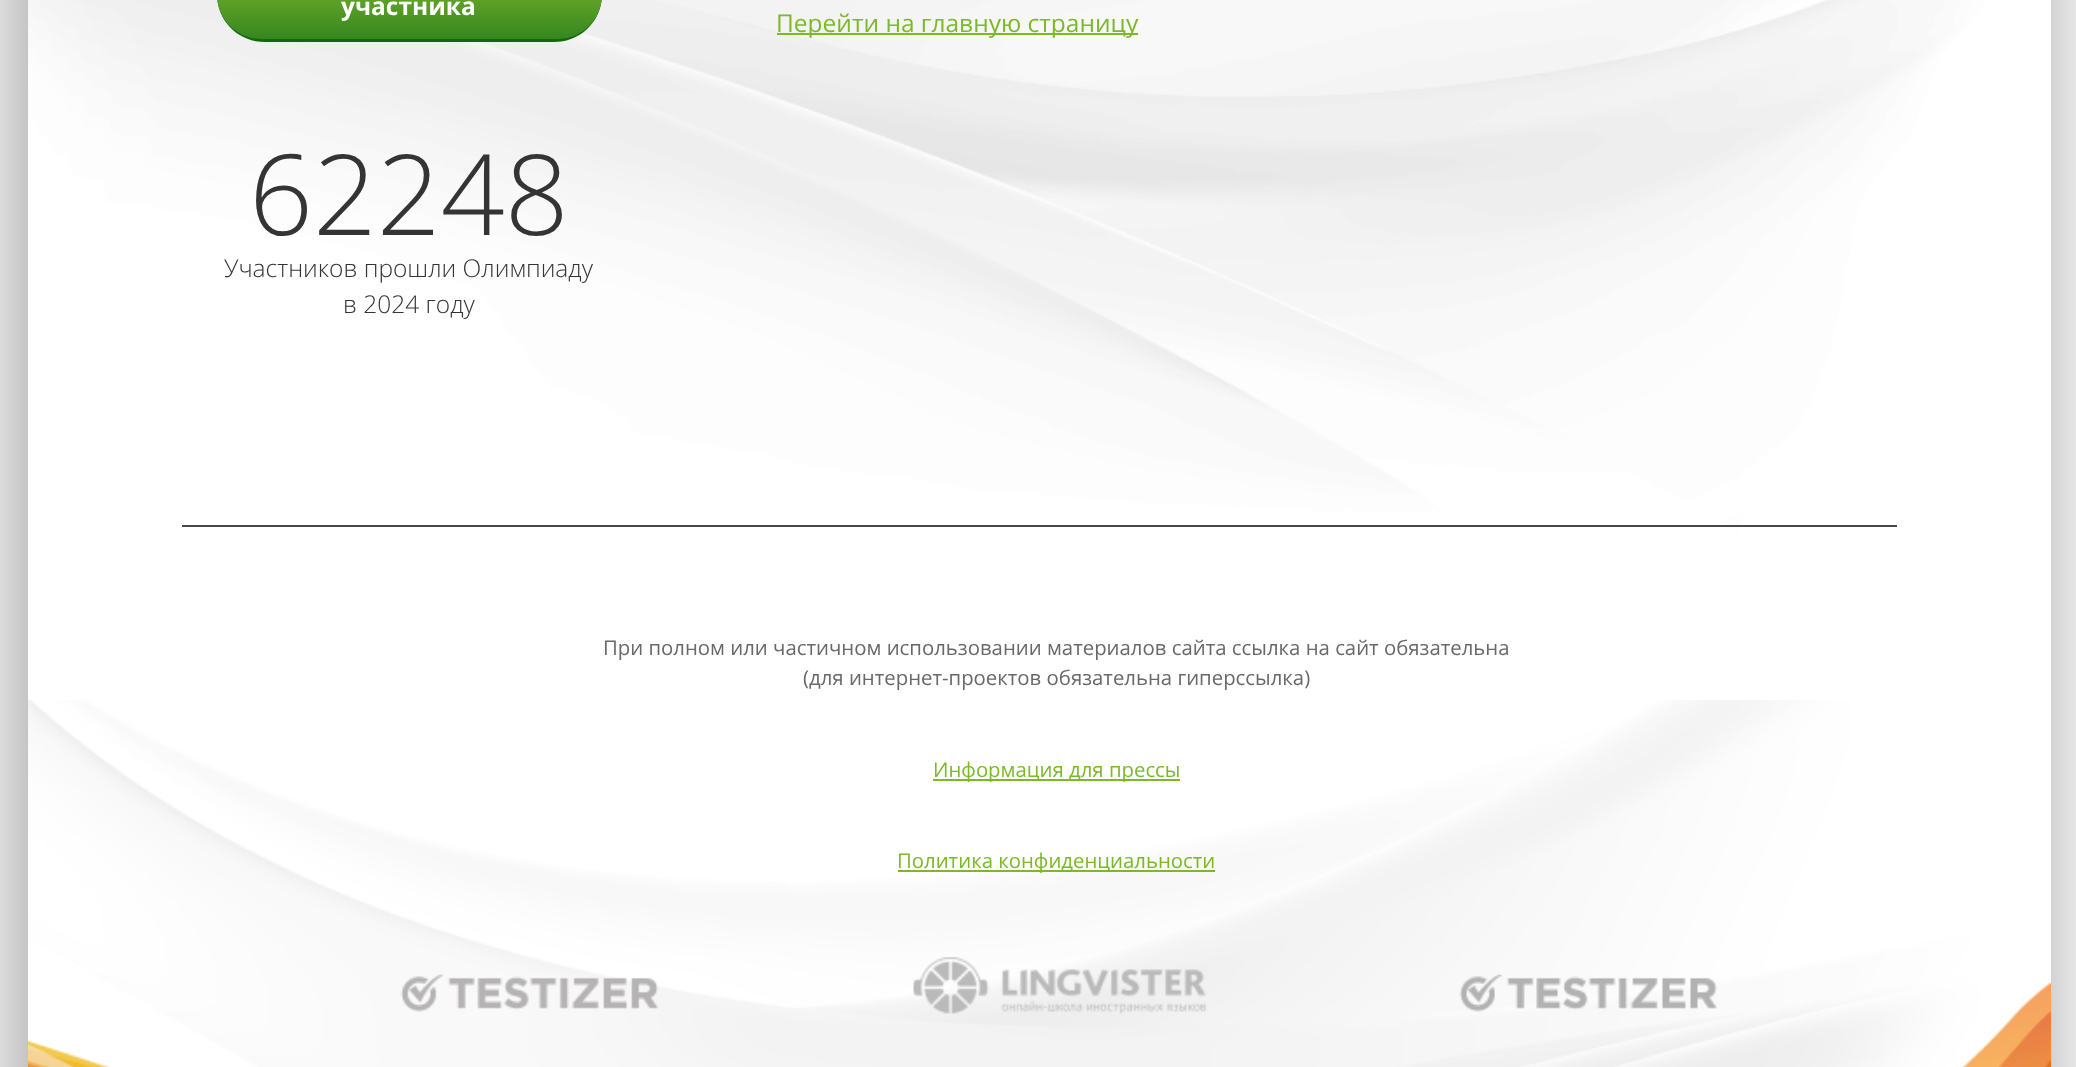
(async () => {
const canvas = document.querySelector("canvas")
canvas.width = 2076
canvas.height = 1067
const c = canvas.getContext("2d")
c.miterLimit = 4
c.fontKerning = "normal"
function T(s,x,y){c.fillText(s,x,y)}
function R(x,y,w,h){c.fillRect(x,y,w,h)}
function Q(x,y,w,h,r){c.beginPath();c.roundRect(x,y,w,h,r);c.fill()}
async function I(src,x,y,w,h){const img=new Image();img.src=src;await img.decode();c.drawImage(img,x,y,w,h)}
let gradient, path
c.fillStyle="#fff"
R(0,0,2076,1067)
c.fillStyle="#00000066"
c.filter="blur(52.5px)"
c.beginPath()
c.rect(19,-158,2023,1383)
c.fill()
c.filter="none"
await I("1.png",28,0,2023,1067)
c.fillStyle="#0f6b0a"
path = new Path2D("M217-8v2c0 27 21 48 48 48h289c27 0 48-21 48-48v-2c-1 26-22 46-48 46h-289c-26 0-47-20-48-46z")
c.fill(path)
gradient = c.createLinearGradient(410,-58,410,39)
gradient.addColorStop(0,"#9bc737")
gradient.addColorStop(1,"#35871f")
c.fillStyle = gradient
Q(217,-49,385,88,48.5)
c.font="bold 24.5px Open Sans"
c.fillStyle="#fff"
T("участника",341,15)
c.font="300 112px Open Sans"
c.fillStyle="#343434"
T("62248",249,235)
c.font="300 24.5px Open Sans"
T("Участников прошли Олимпиаду",224,277)
T("в 2024 году",343,313)
c.fillStyle="#7cb927"
R(777,33,361,2)
c.font="24.5px Open Sans"
T("Перейти на главную страницу",776,32)
c.fillStyle="#484848"
R(182,525,1715,2)
c.font="20.35px Open Sans"
c.fillStyle="#696969"
T("При полном или частичном использовании материалов сайта ссылка на сайт обязательна",603,655)
T("(для интернет-проектов обязательна гиперссылка)",803,685)
c.fillStyle="#7cb927"
R(933,779,247,2)
T("Информация для прессы",933,777)
R(898,870,317,2)
T("Политика конфиденциальности",897,868)
await I("2.png",400,974,259,38)
await I("3.png",913,957,294,57)
await I("4.png",1459,974,258,38)
})()
